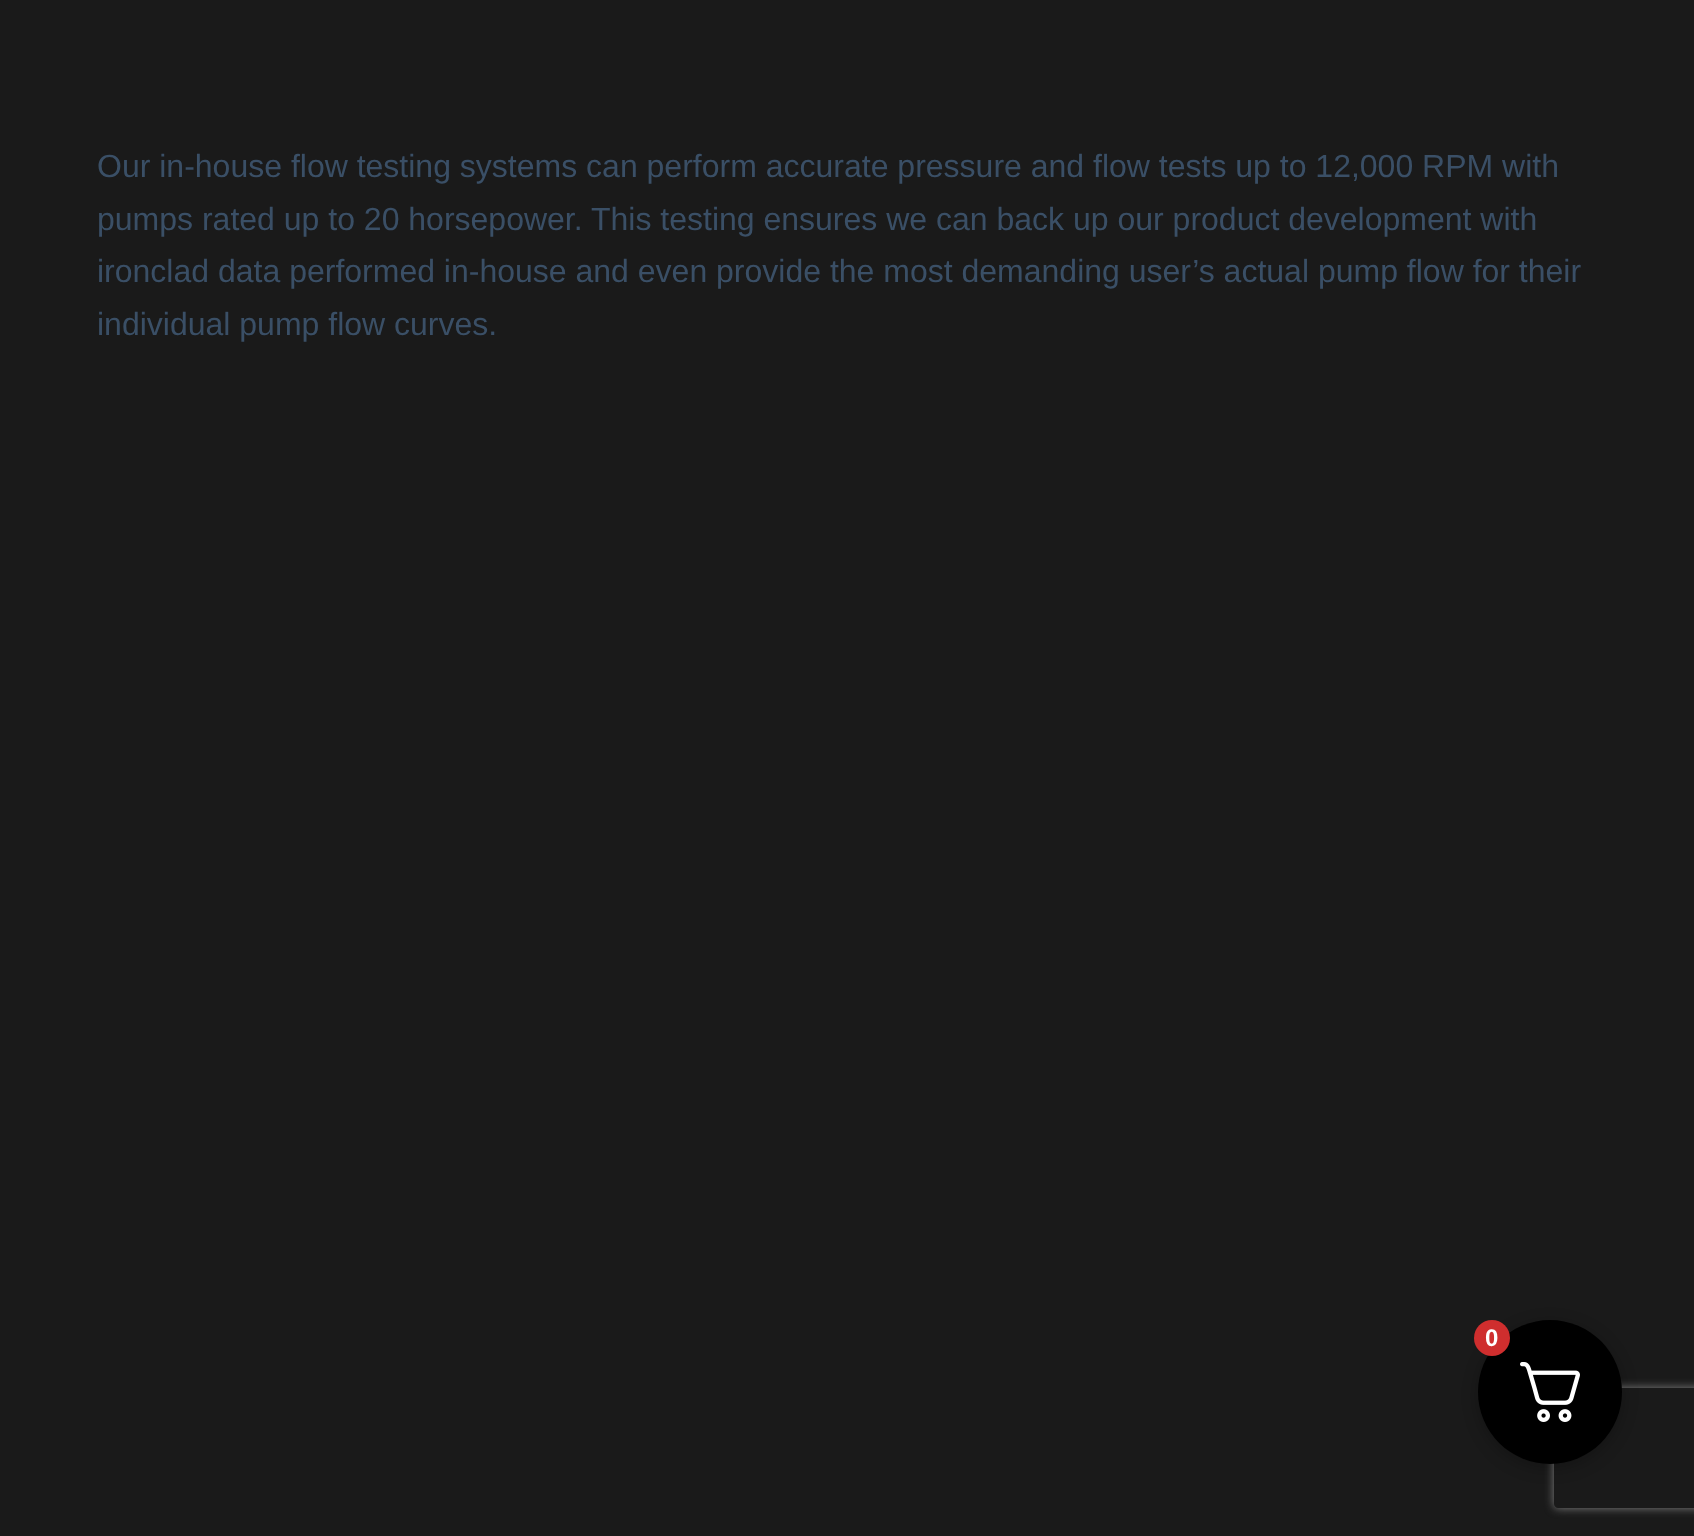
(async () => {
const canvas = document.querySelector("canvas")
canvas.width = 1694
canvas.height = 1536
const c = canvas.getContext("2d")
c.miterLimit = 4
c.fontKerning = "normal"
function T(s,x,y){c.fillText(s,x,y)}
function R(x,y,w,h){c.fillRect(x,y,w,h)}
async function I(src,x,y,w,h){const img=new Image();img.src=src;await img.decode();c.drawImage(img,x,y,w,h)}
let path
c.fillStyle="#1a1a1a"
R(0,0,1694,1536)
c.font="32px Liberation Sans"
c.fillStyle="#3a4f66"
T("Our in-house flow testing systems can perform accurate pressure and flow tests up to 12,000 RPM with",97,177)
T("pumps rated up to 20 horsepower. This testing ensures we can back up our product development with",97,230)
T("ironclad data performed in-house and even provide the most demanding user’s actual pump flow for their",97,282)
T("individual pump flow curves.",97,335)
c.fillStyle="#00000040"
c.filter="blur(8px)"
c.beginPath()
c.roundRect(1478,1324,144,144,72)
c.fill()
c.filter="none"
c.save()
path = new Path2D("M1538 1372h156v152h-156zm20 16h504c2 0 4 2 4 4v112c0 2-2 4-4 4h-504c-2 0-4-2-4-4v-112c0-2 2-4 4-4z")
c.clip(path,"evenodd")
c.fillStyle="#808080"
c.filter="blur(5px)"
c.beginPath()
c.roundRect(1554,1388,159,120,4)
c.fill()
c.filter="none"
c.restore()
c.fillStyle="#000"
c.beginPath()
c.arc(1550,1392,72,0,7)
c.fill()
await I("1.png",1520,1362,60,60)
c.fillStyle="#cf2e2e"
c.beginPath()
c.arc(1492,1338,18,0,7)
c.fill()
c.font="bold 24px Liberation Sans"
c.fillStyle="#fff"
T("0",1485,1346)
})()
